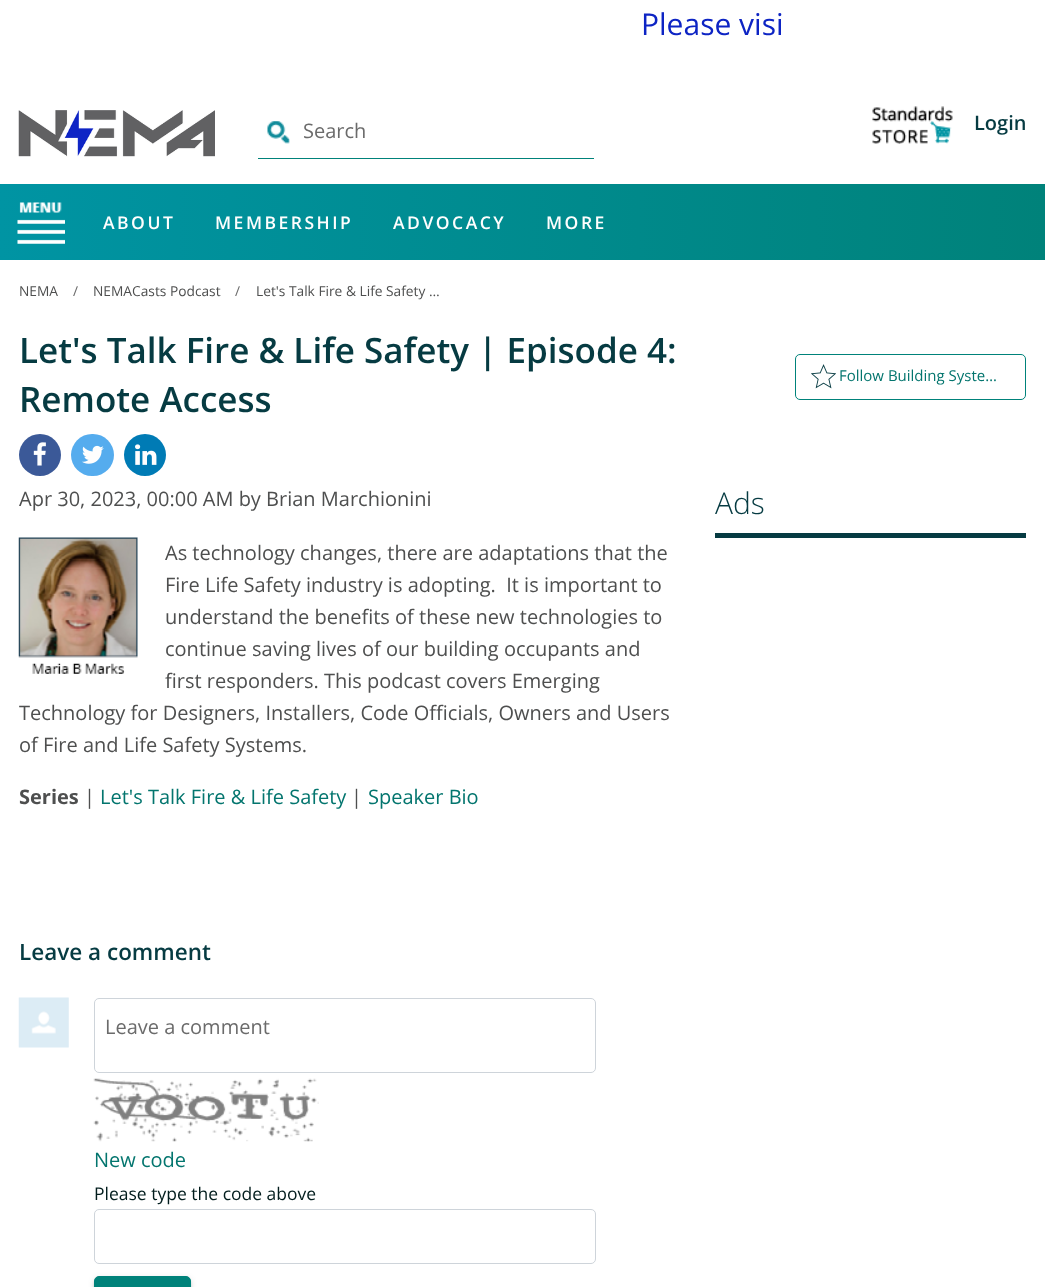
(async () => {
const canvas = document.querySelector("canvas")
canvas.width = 1045
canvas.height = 1287
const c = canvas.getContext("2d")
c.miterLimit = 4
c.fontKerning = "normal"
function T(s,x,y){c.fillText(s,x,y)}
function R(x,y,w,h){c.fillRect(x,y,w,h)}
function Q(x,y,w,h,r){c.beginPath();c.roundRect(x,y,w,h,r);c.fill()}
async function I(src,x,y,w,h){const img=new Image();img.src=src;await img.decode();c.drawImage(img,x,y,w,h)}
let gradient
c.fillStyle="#fff"
R(0,0,1045,1287)
c.font="30px Open Sans"
c.fillStyle="#0d24c4"
T("Please visi",641,35)
await I("1.png",18,110,197,47)
await I("2.png",267,121,23,23)
c.fillStyle="#00827a"
R(258,158,336,1)
c.font="20px Open Sans"
c.fillStyle="#6b6b6b"
T("Search",303,138)
await I("3.png",872,106,81,38)
c.font="600 20px Open Sans"
c.fillStyle="#063b42"
T("Login",974,130)
gradient = c.createLinearGradient(1045,222,0,222)
gradient.addColorStop(0,"#00827a")
gradient.addColorStop(1,"#0094a3")
c.fillStyle = gradient
R(0,184,1045,76)
await I("4.png",17,202,48,42)
c.letterSpacing="2.5px"
c.font="600 17.5px Open Sans"
c.fillStyle="#fefefe"
T("ABOUT",103,229)
T("MEMBERSHIP",215,229)
T("ADVOCACY",393,229)
T("MORE",546,229)
c.letterSpacing="0px"
c.font="13.75px Open Sans"
c.fillStyle="#4e4f4f"
T("NEMA",19,296)
c.fillStyle="#6b6b6b"
T("/",73,296)
c.fillStyle="#4e4f4f"
T("NEMACasts Podcast",93,296)
c.fillStyle="#6b6b6b"
T("/",235,296)
c.fillStyle="#4e4f4f"
T("Let's Talk Fire & Life Safety …",256,296)
c.font="600 35px Open Sans"
c.fillStyle="#063b42"
T("Let's Talk Fire & Life Safety | Episode 4:",19,363)
T("Remote Access",19,412)
c.fillStyle="#3b5998"
c.beginPath()
c.arc(40,455,21,0,7)
c.fill()
await I("5.png",33,442,13,24)
c.fillStyle="#55acee"
Q(71,434,43,42,21)
await I("6.png",82,445,22,19)
c.fillStyle="#007bb5"
c.beginPath()
c.arc(145,455,21,0,7)
c.fill()
await I("7.png",135,444,22,21)
c.beginPath()
c.roundRect(795.5,354.5,230,45,4.5)
c.strokeStyle="#00827a"
c.stroke()
await I("8.png",811,364,25,25)
c.font="15px Open Sans"
c.fillStyle="#03756e"
T("Follow Building Syste…",839,381)
c.font="20px Open Sans"
c.fillStyle="#4e4f4f"
T("Apr 30, 2023, 00:00 AM by Brian Marchionini",19,506)
await I("9.png",18,537,120,137)
T("As technology changes, there are adaptations that the",165,560)
T("Fire Life Safety industry is adopting.  It is important to",165,592)
T("understand the benefits of these new technologies to",165,624)
T("continue saving lives of our building occupants and",165,656)
T("first responders. This podcast covers Emerging",165,688)
T("Technology for Designers, Installers, Code Officials, Owners and Users",19,720)
T("of Fire and Life Safety Systems.",19,752)
c.font="bold 20px Open Sans"
T("Series",19,804)
c.font="20px Open Sans"
T("|",84,804)
c.fillStyle="#03756e"
T("Let's Talk Fire & Life Safety",100,804)
c.fillStyle="#4e4f4f"
T("|",351,804)
c.fillStyle="#03756e"
T("Speaker Bio",368,804)
c.font="600 22.5px Open Sans"
c.fillStyle="#063b42"
T("Leave a comment",19,960)
await I("10.png",18,997,51,51)
c.beginPath()
c.roundRect(94.5,998.5,501,74,4.5)
c.strokeStyle="#ced4da"
c.stroke()
c.font="20px Open Sans"
c.fillStyle="#6b6b6b"
T("Leave a comment",105,1034)
await I("11.png",93,1078,226,64)
c.fillStyle="#03756e"
T("New code",94,1167)
c.font="17.5px Open Sans"
c.fillStyle="#021d1d"
T("Please type the code above",94,1200)
c.beginPath()
c.roundRect(94.5,1209.5,501,54,4.5)
c.stroke()
c.fillStyle="#0000001f"
c.filter="blur(3px)"
c.beginPath()
c.roundRect(94,1278,97,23,5)
c.fill()
c.filter="none"
c.fillStyle="#00000024"
c.filter="blur(1px)"
c.beginPath()
c.roundRect(94,1279,97,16,5)
c.fill()
c.filter="none"
c.fillStyle="#00827a"
c.beginPath()
c.roundRect(94.5,1276.5,96,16,4.5)
c.fill()
c.strokeStyle="#00827a"
c.stroke()
c.fillStyle="#063b42"
R(715,533,311,5)
c.font="300 30px Open Sans"
T("Ads",715,514)
})()
